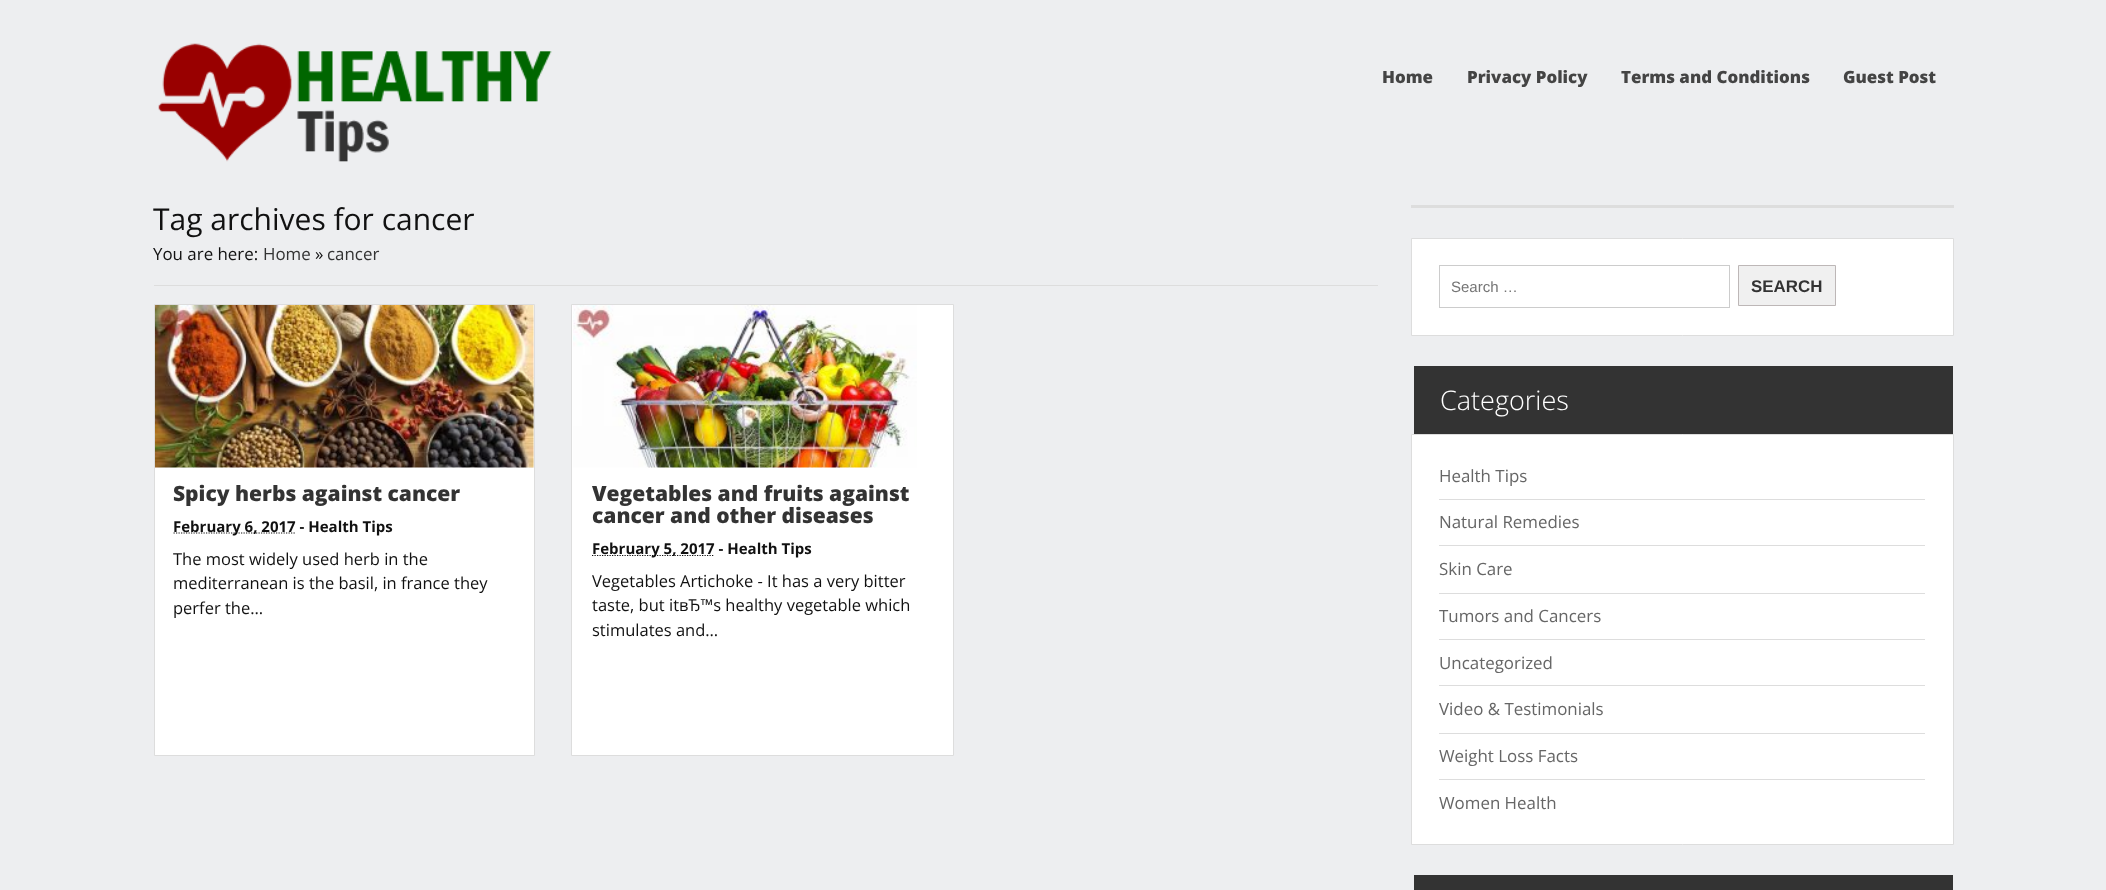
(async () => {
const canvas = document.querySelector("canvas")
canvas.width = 2106
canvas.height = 890
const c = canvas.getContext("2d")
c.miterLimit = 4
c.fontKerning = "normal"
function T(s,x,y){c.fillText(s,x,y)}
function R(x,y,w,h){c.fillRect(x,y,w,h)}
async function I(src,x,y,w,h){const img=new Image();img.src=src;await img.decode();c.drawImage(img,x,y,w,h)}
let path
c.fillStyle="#edeef0"
R(0,0,2106,890)
await I("1.png",158,43,394,119)
c.font="800 16.9px Open Sans"
c.fillStyle="#444"
T("Home",1382,83)
T("Privacy Policy",1467,83)
T("Terms and Conditions",1621,83)
T("Guest Post",1843,83)
c.font="30px Open Sans"
c.fillStyle="#111"
T("Tag archives for cancer",153,230)
c.fillStyle="#ddd"
R(154,285,1224,1)
c.font="16.9px Open Sans"
c.fillStyle="#111"
T("You are here:",153,260)
c.fillStyle="#333"
T("Home",263,260)
c.fillStyle="#111"
T("»",315,260)
c.fillStyle="#333"
T("cancer",327,260)
c.fillStyle="#fff"
c.beginPath()
c.rect(154.5,304.5,380,451)
c.fill()
c.strokeStyle="#ddd"
c.stroke()
await I("2.png",155,305,379,163)
c.font="800 21px Open Sans"
c.fillStyle="#333"
T("Spicy herbs against cancer",173,501)
path = new Path2D("M173.5 533h122.5")
c.strokeStyle="#111"
c.lineWidth=1.2
c.setLineDash([1.25,1.25])
c.stroke(path)
c.font="bold 15px Open Sans"
c.fillStyle="#111"
T("February 6, 2017 - Health Tips",173,532)
c.font="16.5px Open Sans"
T("The most widely used herb in the",173,565)
T("mediterranean is the basil, in france they",173,589)
T("perfer the…",173,614)
c.fillStyle="#fff"
c.beginPath()
c.rect(571.5,304.5,382,451)
c.fill()
c.strokeStyle="#ddd"
c.lineWidth=1
c.setLineDash([])
c.stroke()
await I("3.png",573,305,344,163)
c.font="800 21px Open Sans"
c.fillStyle="#333"
T("Vegetables and fruits against",592,501)
T("cancer and other diseases",592,523)
path = new Path2D("M592 555.5h122.5")
c.strokeStyle="#111"
c.lineWidth=1.2
c.setLineDash([1.25,1.25])
c.stroke(path)
c.font="bold 15px Open Sans"
c.fillStyle="#111"
T("February 5, 2017 - Health Tips",592,554)
c.font="16.5px Open Sans"
T("Vegetables Artichoke - It has a very bitter",592,587)
T("taste, but itвЂ™s healthy vegetable which",592,611)
T("stimulates and…",592,636)
c.fillStyle="#ddd"
R(1411,205,543,3)
c.fillStyle="#fff"
c.beginPath()
c.rect(1411.5,238.5,542,97)
c.fill()
c.strokeStyle="#ddd"
c.lineWidth=1
c.setLineDash([])
c.stroke()
c.strokeStyle="#ccc"
c.strokeRect(1439.5,265.5,290,42)
c.font="15px Liberation Sans"
c.fillStyle="#757575"
T("Search …",1451,292)
c.fillStyle="#f0f0f0"
c.beginPath()
c.rect(1738.5,265.5,97,40)
c.fill()
c.strokeStyle="#bdb7b7"
c.stroke()
c.font="bold 16.9px Liberation Sans"
c.fillStyle="#333"
T("SEARCH",1751,292)
R(1414,366,539,68)
c.font="300 27px Open Sans"
c.fillStyle="#fff"
T("Categories",1440,410)
c.beginPath()
c.rect(1411.5,434.5,542,410)
c.fill()
c.strokeStyle="#ddd"
c.stroke()
c.fillStyle="#ddd"
R(1439,499,486,1)
c.font="16.9px Open Sans"
c.fillStyle="#666"
T("Health Tips",1439,482)
c.fillStyle="#ddd"
R(1439,545,486,1)
c.fillStyle="#666"
T("Natural Remedies",1439,528)
c.fillStyle="#ddd"
R(1439,593,486,1)
c.fillStyle="#666"
T("Skin Care",1439,575)
c.fillStyle="#ddd"
R(1439,639,486,1)
c.fillStyle="#666"
T("Tumors and Cancers",1439,622)
c.fillStyle="#ddd"
R(1439,685,486,1)
c.fillStyle="#666"
T("Uncategorized",1439,669)
c.fillStyle="#ddd"
R(1439,733,486,1)
c.fillStyle="#666"
T("Video & Testimonials",1439,715)
c.fillStyle="#ddd"
R(1439,779,486,1)
c.fillStyle="#666"
T("Weight Loss Facts",1439,762)
T("Women Health",1439,809)
c.fillStyle="#333"
R(1414,875,539,15)
})()
